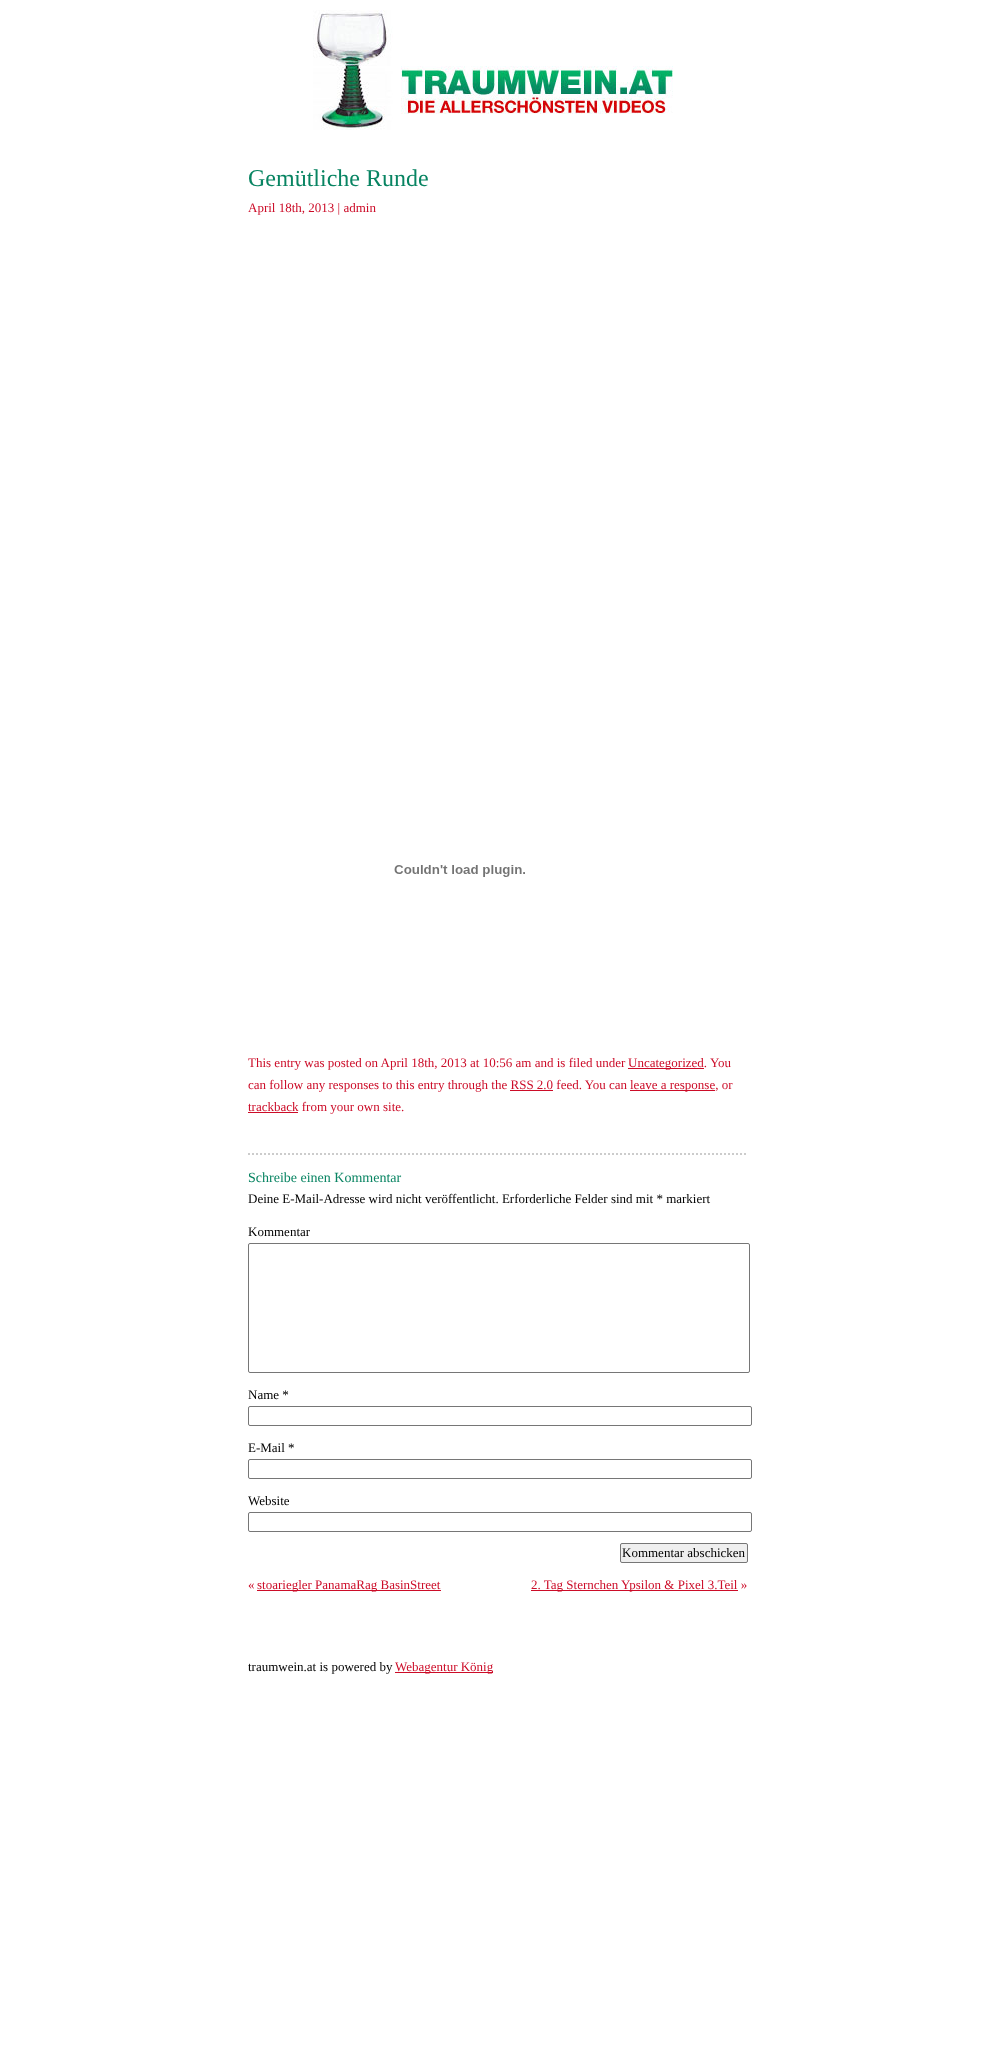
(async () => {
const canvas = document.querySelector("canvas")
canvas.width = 995
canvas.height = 2057
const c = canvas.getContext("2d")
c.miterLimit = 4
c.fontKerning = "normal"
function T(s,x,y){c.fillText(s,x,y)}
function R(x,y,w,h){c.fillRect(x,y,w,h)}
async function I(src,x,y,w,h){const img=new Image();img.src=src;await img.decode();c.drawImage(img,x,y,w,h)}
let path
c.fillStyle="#fff"
R(0,0,995,2057)
await I("1.png",313,10,360,120)
path = new Path2D("M248 1154h500")
c.strokeStyle="#ccc"
c.lineWidth=2
c.setLineDash([2,2])
c.stroke(path)
c.font="24px Liberation Serif"
c.fillStyle="#088462"
T("Gemütliche Runde",248,186)
c.font="13px Liberation Serif"
c.fillStyle="#cc0c28"
T("April 18th, 2013 | admin",248,212)
await I("2.png",394,865,131,12)
T("This entry was posted on April 18th, 2013 at 10:56 am and is filed under",248,1067)
R(628,1068,76,1)
T("Uncategorized.",628,1067)
T("You",710,1067)
T("can follow any responses to this entry through the RSS 2.0 feed. You can",248,1089)
R(630,1090,85,1)
T("leave a response, or",630,1089)
R(510,1090,43,1)
R(248,1112,50,1)
T("trackback from your own site.",248,1111)
c.font="14px Liberation Serif"
c.fillStyle="#088462"
T("Schreibe einen Kommentar",248,1182)
c.font="13px Liberation Serif"
c.fillStyle="#000"
T("Deine E-Mail-Adresse wird nicht veröffentlicht. Erforderliche Felder sind mit * markiert",248,1203)
T("Kommentar",248,1236)
c.beginPath()
c.roundRect(248.5,1243.5,501,129,1.5)
c.strokeStyle="#767676"
c.lineWidth=1
c.setLineDash([])
c.stroke()
T("Name *",248,1399)
c.beginPath()
c.roundRect(248.5,1406.5,503,19,1.5)
c.stroke()
T("E-Mail *",248,1452)
c.beginPath()
c.roundRect(248.5,1459.5,503,19,1.5)
c.stroke()
T("Website",248,1505)
c.beginPath()
c.roundRect(248.5,1512.5,503,19,1.5)
c.stroke()
c.fillStyle="#efefef"
c.beginPath()
c.roundRect(620.5,1543.5,127,19,1.5)
c.fill()
c.stroke()
c.fillStyle="#000"
T("Kommentar abschicken",622,1557)
c.fillStyle="#cc0c28"
T("«",248,1589)
R(257,1590,184,1)
T("stoariegler PanamaRag BasinStreet",257,1589)
R(531,1590,207,1)
T("2. Tag Sternchen Ypsilon & Pixel 3.Teil »",531,1589)
c.fillStyle="#000"
T("traumwein.at is powered by",248,1671)
c.fillStyle="#cc0c28"
R(395,1672,98,1)
T("Webagentur König",395,1671)
})()
